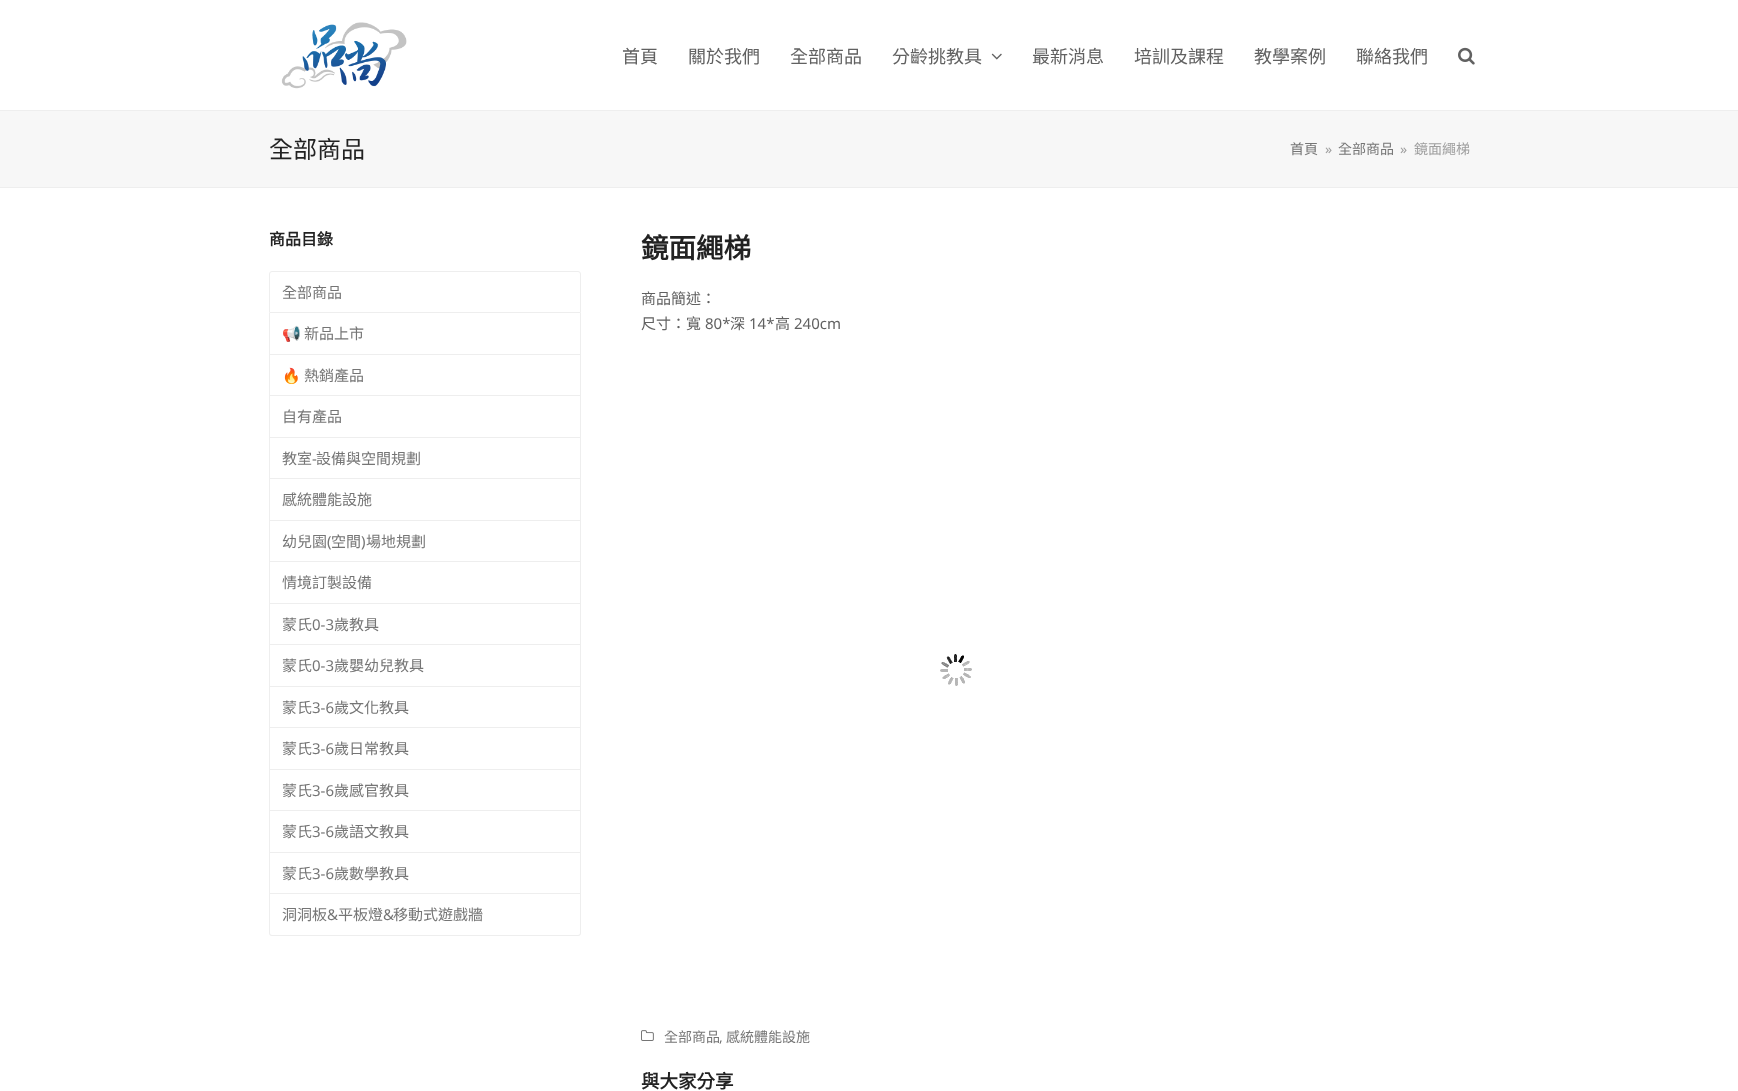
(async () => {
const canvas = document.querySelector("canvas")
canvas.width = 1738
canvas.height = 1091
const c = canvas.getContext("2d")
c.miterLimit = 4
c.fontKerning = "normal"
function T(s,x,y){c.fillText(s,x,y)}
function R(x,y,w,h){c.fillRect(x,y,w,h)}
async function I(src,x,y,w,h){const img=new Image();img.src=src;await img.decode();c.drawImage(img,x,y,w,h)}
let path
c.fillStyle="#fff"
R(0,0,1738,1091)
await I("1.png",281,22,126,67)
c.font="18px Noto Sans CJK TC"
c.fillStyle="#616161"
T("首頁",622,63)
T("關於我們",688,63)
T("全部商品",790,63)
T("分齡挑教具",892,63)
await I("2.png",991,53,11,7)
T("最新消息",1032,63)
T("培訓及課程",1134,63)
T("教學案例",1254,63)
T("聯絡我們",1356,63)
await I("3.png",1458,47,17,18)
c.fillStyle="#f7f7f7"
R(0,111,1738,76)
c.fillStyle="#eee"
R(0,110,1738,1)
R(0,187,1738,1)
c.font="24px Noto Sans CJK TC"
c.fillStyle="#222"
T("全部商品",269,158)
c.font="14px Noto Sans CJK TC"
c.fillStyle="#757575"
T("首頁",1290,154)
c.font="14px Noto Sans"
c.fillStyle="#9e9e9e"
T("»",1325,154)
c.font="14px Noto Sans CJK TC"
c.fillStyle="#757575"
T("全部商品",1338,154)
c.font="14px Noto Sans"
c.fillStyle="#9e9e9e"
T("»",1400,154)
c.font="14px Noto Sans CJK TC"
T("鏡面繩梯",1414,154)
c.font="bold 16px Noto Sans CJK TC"
c.fillStyle="#222"
T("商品目錄",269,245)
c.beginPath()
c.roundRect(269.5,271.5,311,41,[2.5,2.5,0,0])
c.strokeStyle="#eee"
c.stroke()
c.font="15px Noto Sans CJK TC"
c.fillStyle="#757575"
T("全部商品",282,298)
c.fillStyle="#eee"
R(580,313,1,581)
R(269,354,312,1)
R(269,313,1,42)
c.font="15px Noto Color Emoji"
c.fillStyle="#757575"
T("📢",282,339)
c.font="15px Noto Sans CJK TC"
T("新品上市",304,339)
c.fillStyle="#eee"
R(269,395,312,1)
R(269,355,1,41)
c.font="15px Noto Color Emoji"
c.fillStyle="#757575"
T("🔥",282,381)
c.font="15px Noto Sans CJK TC"
T("熱銷產品",304,381)
c.fillStyle="#eee"
R(269,437,312,1)
R(269,396,1,42)
c.fillStyle="#757575"
T("自有產品",282,422)
c.fillStyle="#eee"
R(269,478,312,1)
R(269,438,1,41)
c.fillStyle="#757575"
T("教室",282,464)
c.font="15px Noto Sans"
T("-",312,464)
c.font="15px Noto Sans CJK TC"
T("設備與空間規劃",316,464)
c.fillStyle="#eee"
R(269,520,312,1)
R(269,479,1,42)
c.fillStyle="#757575"
T("感統體能設施",282,505)
c.fillStyle="#eee"
R(269,561,312,1)
R(269,521,1,41)
c.fillStyle="#757575"
T("幼兒園",282,547)
c.font="15px Noto Sans"
T("(",327,547)
c.font="15px Noto Sans CJK TC"
T("空間",331,547)
c.font="15px Noto Sans"
T(")",361,547)
c.font="15px Noto Sans CJK TC"
T("場地規劃",366,547)
c.fillStyle="#eee"
R(269,603,312,1)
R(269,562,1,42)
c.fillStyle="#757575"
T("情境訂製設備",282,588)
c.fillStyle="#eee"
R(269,644,312,1)
R(269,604,1,41)
c.fillStyle="#757575"
T("蒙氏",282,630)
c.font="15px Noto Sans"
T("0-3",312,630)
c.font="15px Noto Sans CJK TC"
T("歲教具",334,630)
c.fillStyle="#eee"
R(269,686,312,1)
R(269,645,1,42)
c.fillStyle="#757575"
T("蒙氏",282,671)
c.font="15px Noto Sans"
T("0-3",312,671)
c.font="15px Noto Sans CJK TC"
T("歲嬰幼兒教具",334,671)
c.fillStyle="#eee"
R(269,727,312,1)
R(269,687,1,41)
c.fillStyle="#757575"
T("蒙氏",282,713)
c.font="15px Noto Sans"
T("3-6",312,713)
c.font="15px Noto Sans CJK TC"
T("歲文化教具",334,713)
c.fillStyle="#eee"
R(269,769,312,1)
R(269,728,1,42)
c.fillStyle="#757575"
T("蒙氏",282,754)
c.font="15px Noto Sans"
T("3-6",312,754)
c.font="15px Noto Sans CJK TC"
T("歲日常教具",334,754)
c.fillStyle="#eee"
R(269,810,312,1)
R(269,770,1,41)
c.fillStyle="#757575"
T("蒙氏",282,796)
c.font="15px Noto Sans"
T("3-6",312,796)
c.font="15px Noto Sans CJK TC"
T("歲感官教具",334,796)
c.fillStyle="#eee"
R(269,852,312,1)
R(269,811,1,42)
c.fillStyle="#757575"
T("蒙氏",282,837)
c.font="15px Noto Sans"
T("3-6",312,837)
c.font="15px Noto Sans CJK TC"
T("歲語文教具",334,837)
c.fillStyle="#eee"
R(269,893,312,1)
R(269,853,1,41)
c.fillStyle="#757575"
T("蒙氏",282,879)
c.font="15px Noto Sans"
T("3-6",312,879)
c.font="15px Noto Sans CJK TC"
T("歲數學教具",334,879)
c.fillStyle="#eee"
path = new Path2D("M269 894h312v39c0 2-1 3-3 3h-306c-2 0-3-1-3-3zm1 0h310v39c0 1-1 2-2 2h-306c-1 0-2-1-2-2z")
c.fill(path,"evenodd")
c.fillStyle="#757575"
T("洞洞板",282,920)
c.font="15px Noto Sans"
T("&",327,920)
c.font="15px Noto Sans CJK TC"
T("平板燈",338,920)
c.font="15px Noto Sans"
T("&",383,920)
c.font="15px Noto Sans CJK TC"
T("移動式遊戲牆",393,920)
c.font="bold 27.5px Noto Sans CJK TC"
c.fillStyle="#222"
T("鏡面繩梯",641,258)
c.font="15px Noto Sans CJK TC"
c.fillStyle="#616161"
T("商品簡述：",641,304)
T("尺寸：寬",641,329)
c.font="15px Noto Sans"
T("80*",705,329)
c.font="15px Noto Sans CJK TC"
T("深",730,329)
c.font="15px Noto Sans"
T("14*",749,329)
c.font="15px Noto Sans CJK TC"
T("高",775,329)
c.font="15px Noto Sans"
T("240cm",794,329)
await I("4.png",940,654,32,32)
await I("5.png",641,1030,13,11)
c.font="14px Noto Sans CJK TC"
c.fillStyle="#757575"
T("全部商品",664,1042)
c.font="14px Noto Sans"
T(",",719,1042)
c.font="14px Noto Sans CJK TC"
T("感統體能設施",726,1042)
c.font="bold 18.5px Noto Sans CJK TC"
c.fillStyle="#222"
T("與大家分享",641,1088)
})()
